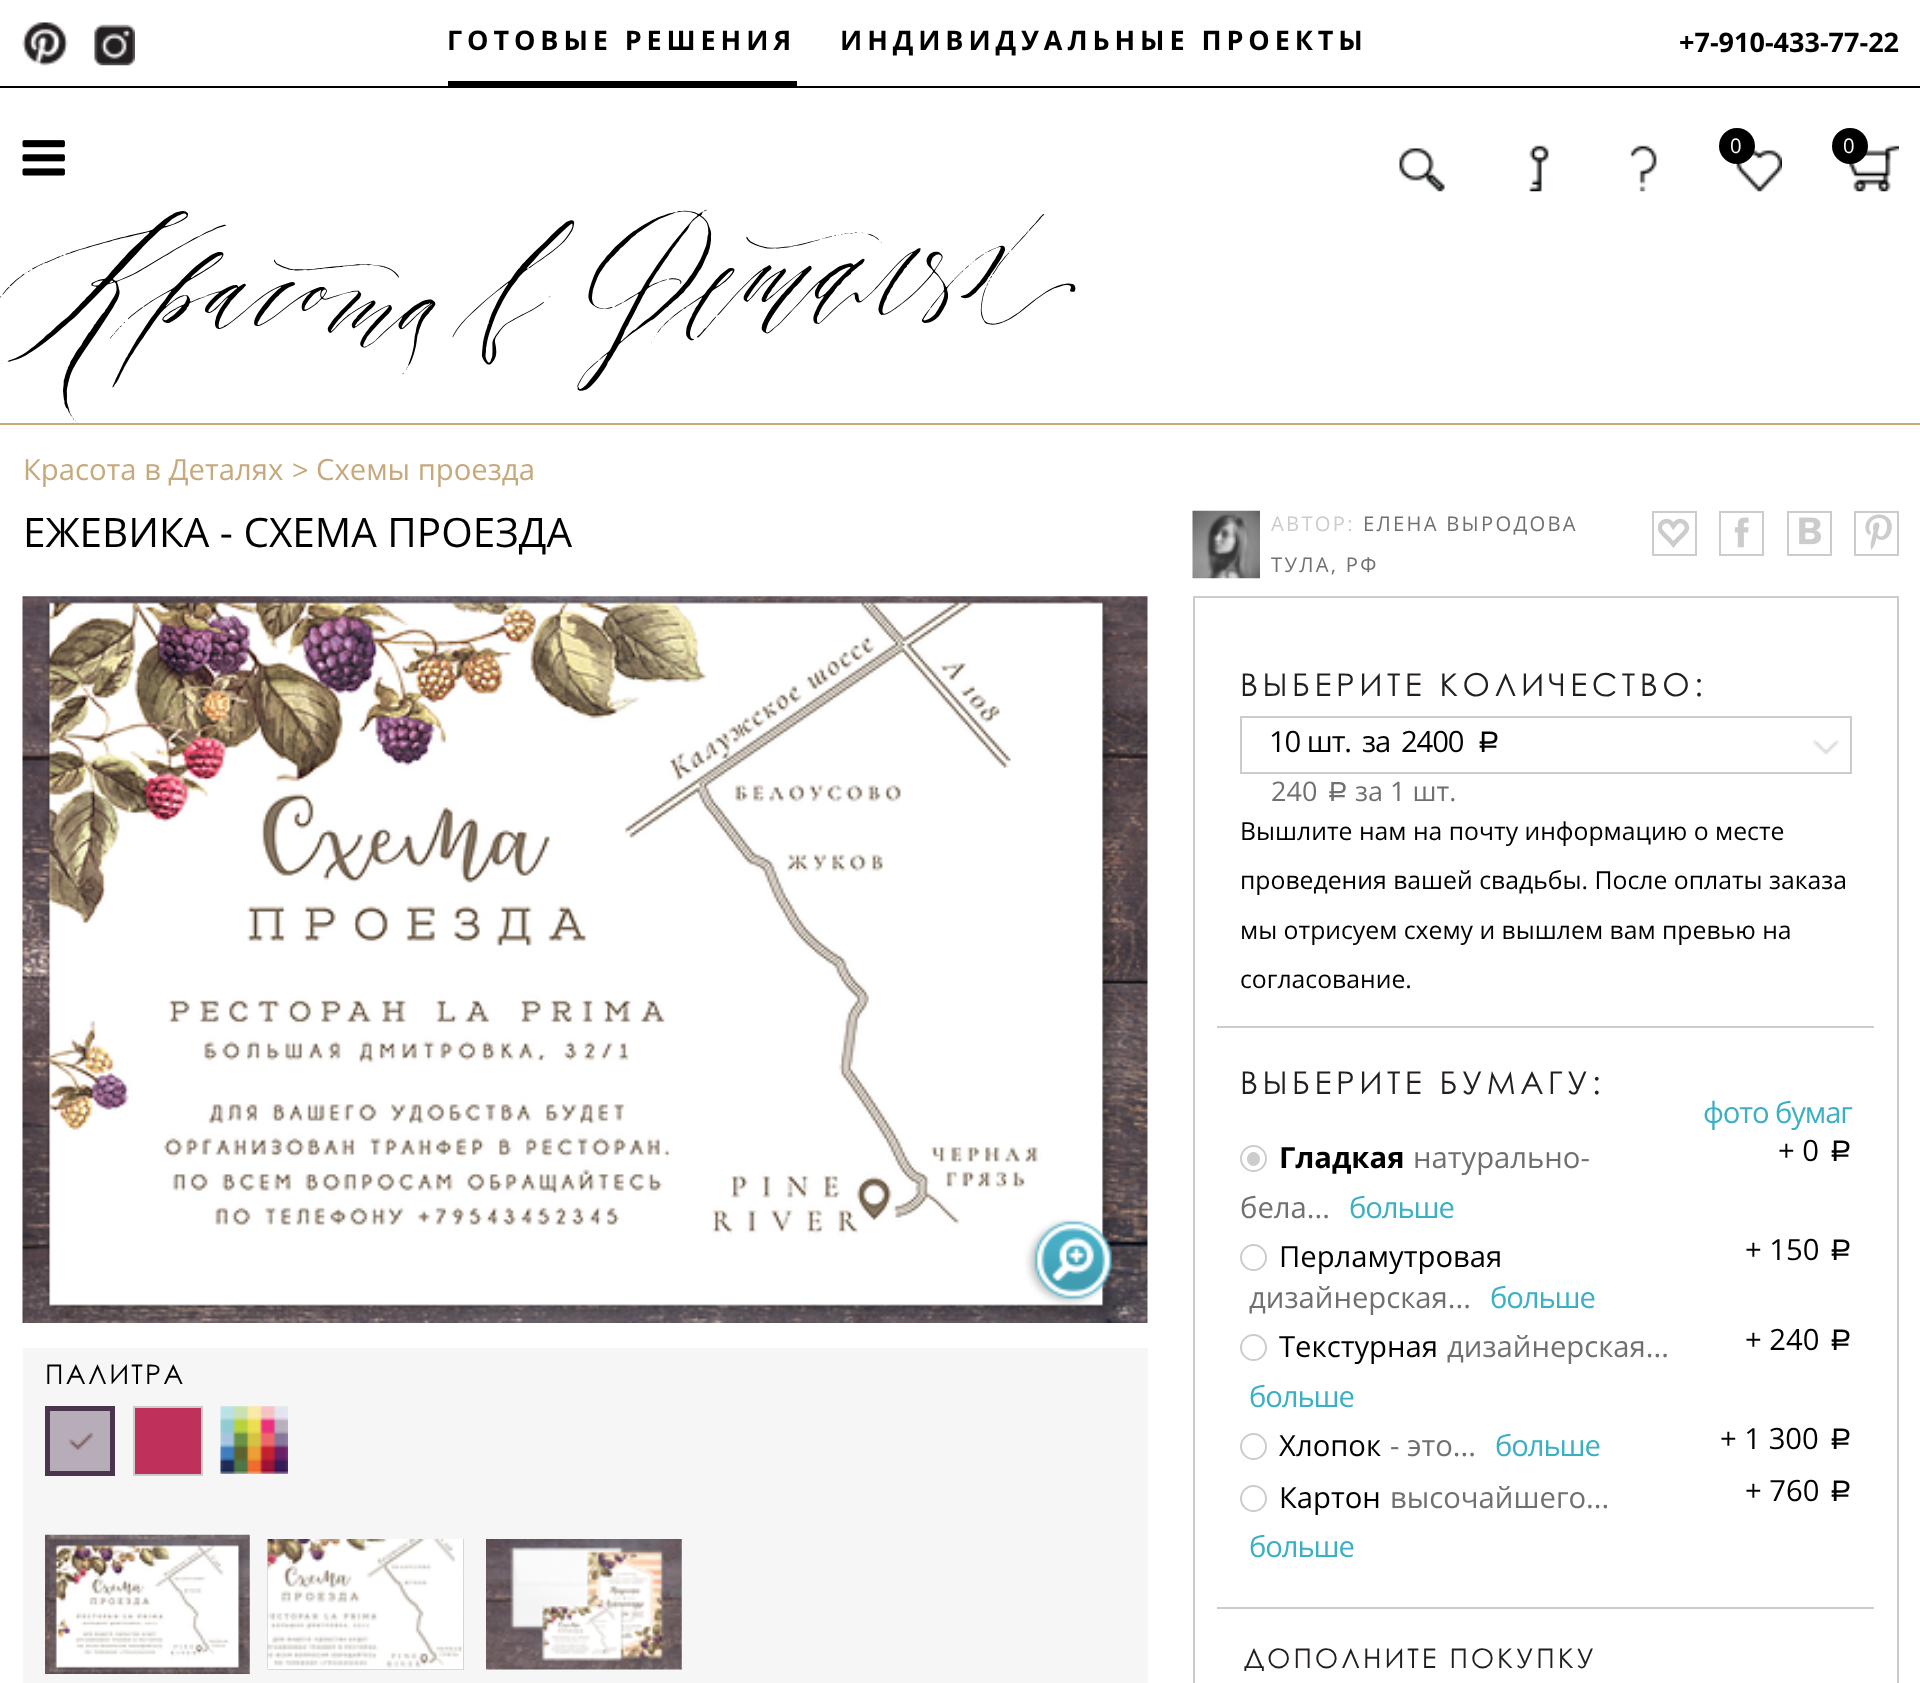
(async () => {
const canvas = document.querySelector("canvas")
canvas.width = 1920
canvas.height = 1683
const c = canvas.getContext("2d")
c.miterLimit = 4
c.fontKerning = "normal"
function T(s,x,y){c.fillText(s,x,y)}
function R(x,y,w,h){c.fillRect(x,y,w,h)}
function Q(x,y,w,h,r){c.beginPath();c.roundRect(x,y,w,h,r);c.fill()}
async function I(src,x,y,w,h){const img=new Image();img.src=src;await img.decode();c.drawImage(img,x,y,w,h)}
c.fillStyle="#fff"
R(0,0,1920,1683)
c.fillStyle="#c6a97c"
R(0,423,1920,2)
c.fillStyle="#000"
R(0,86,1920,2)
await I("1.png",22,22,46,44)
await I("2.png",94,24,41,42)
R(448,81,349,5)
c.letterSpacing="4.9px"
c.font="bold 27px Open Sans"
T("ГОТОВЫЕ РЕШЕНИЯ",447,50)
T("ИНДИВИДУАЛЬНЫЕ ПРОЕКТЫ",840,50)
c.letterSpacing="0px"
T("+7-910-433-77-22",1679,52)
await I("3.png",22,140,43,36)
await I("4.png",1399,148,46,44)
await I("5.png",1529,145,20,47)
await I("6.png",1630,145,27,47)
await I("7.png",1736,150,46,42)
c.beginPath()
c.arc(1737,146,18,0,7)
c.fill()
c.letterSpacing="2.25px"
c.font="20.25px Open Sans"
c.fillStyle="#fff"
T("0",1730,153)
await I("8.png",1846,145,53,47)
c.fillStyle="#000"
c.beginPath()
c.arc(1850,146,18,0,7)
c.fill()
c.fillStyle="#fff"
T("0",1843,153)
await I("9.png",0,209,1076,214)
c.letterSpacing="0px"
c.font="29.25px Open Sans"
c.fillStyle="#c6a97c"
T("Красота в Деталях",23,480)
c.font="27px Century Gothic"
T(">",292,480)
c.font="29.25px Open Sans"
T("Схемы проезда",316,480)
c.font="40.5px Open Sans"
c.fillStyle="#000"
T("ЕЖЕВИКА - СХЕМА ПРОЕЗДА",23,547)
await I("10.png",22,596,1126,727)
await I("11.png",46,600,1071,720)
await I("12.png",1025,1219,88,86)
c.fillStyle="#f6f6f6"
R(23,1348,1125,335)
c.letterSpacing="2.25px"
c.font="27px Century Gothic"
c.fillStyle="#000"
T("ПАЛИТРА",45,1384)
c.fillStyle="#4b344e"
R(50,1411,60,60)
await I("13.png",50,1411,60,60)
c.strokeStyle="#4b344e"
c.lineWidth=5
c.strokeRect(47.5,1408.5,65,65)
c.fillStyle="#be315a"
c.beginPath()
c.rect(134,1407,68,68)
c.fill()
c.strokeStyle="#ccc"
c.lineWidth=2
c.stroke()
await I("14.png",220,1406,68,68)
await I("15.png",45,1534,205,140)
await I("16.png",55,1545,189,128)
await I("17.png",267,1539,197,131)
await I("18.png",267,1539,197,131)
await I("19.png",486,1539,196,131)
await I("20.png",510,1547,154,114)
await I("21.png",1192,510,68,69)
c.font="20.25px Open Sans"
c.fillStyle="#ccc"
T("АВТОР:",1271,531)
c.fillStyle="#707070"
T("ЕЛЕНА ВЫРОДОВА",1363,531)
T("ТУЛА, РФ",1271,572)
c.strokeRect(1653,512,43,43)
await I("22.png",1658,518,32,30)
c.strokeRect(1720,512,43,43)
await I("23.png",1734,517,15,31)
c.strokeRect(1788,512,43,43)
await I("24.png",1799,517,22,28)
c.strokeRect(1855,512,43,43)
await I("25.png",1865,514,27,36)
c.strokeRect(1194,597,704,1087)
c.fillStyle="#ccc"
R(1217,1026,657,2)
c.letterSpacing="4.5px"
c.font="31.5px Century Gothic"
c.fillStyle="#231f20"
T("ВЫБЕРИТЕ КОЛИЧЕСТВО:",1240,696)
c.strokeRect(1241,717,610,56)
c.letterSpacing="-1.1px"
c.font="29.25px Open Sans"
c.fillStyle="#000"
T("10 шт.",1269,752)
T("за",1362,752)
T("2400",1401,752)
c.letterSpacing="0px"
c.font="29.25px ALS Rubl"
T("a",1475,752)
await I("26.png",1813,740,26,15)
c.font="27px Open Sans"
c.fillStyle="#707070"
T("240",1271,801)
c.font="27px ALS Rubl"
T("a",1325,801)
c.font="27px Open Sans"
T("за 1 шт.",1355,801)
c.font="24.75px Open Sans"
c.fillStyle="#000"
T("Вышлите нам на почту информацию о месте",1240,840)
T("проведения вашей свадьбы. После оплаты заказа",1240,889)
T("мы отрисуем схему и вышлем вам превью на",1240,939)
T("согласование.",1240,988)
c.fillStyle="#ccc"
R(1217,1607,657,2)
c.letterSpacing="4.5px"
c.font="31.5px Century Gothic"
c.fillStyle="#231f20"
T("ВЫБЕРИТЕ БУМАГУ:",1240,1094)
c.letterSpacing="-1.1px"
c.font="29.25px Open Sans"
c.fillStyle="#3bafc3"
T("фото бумаг",1703,1123)
c.beginPath()
c.arc(1253.5,1158.5,12.5,0,7)
c.stroke()
c.fillStyle="#ccc"
Q(1247,1152,13,14,6.5)
c.letterSpacing="0px"
c.font="bold 29.25px Open Sans"
c.fillStyle="#000"
T("Гладкая",1279,1168)
c.font="29.25px Open Sans"
c.fillStyle="#707070"
T("натурально-",1413,1168)
T("бела...",1240,1218)
c.letterSpacing="-1.1px"
c.fillStyle="#3bafc3"
T("больше",1349,1218)
c.letterSpacing="0px"
c.fillStyle="#000"
T("+ 0",1778,1161)
c.font="29.25px ALS Rubl"
T("a",1827,1161)
c.beginPath()
c.arc(1253.5,1257.5,12.5,0,7)
c.stroke()
c.font="29.25px Open Sans"
T("Перламутровая",1279,1267)
c.fillStyle="#707070"
T("дизайнерская...",1249,1308)
c.letterSpacing="-1.1px"
c.fillStyle="#3bafc3"
T("больше",1490,1308)
c.letterSpacing="0px"
c.fillStyle="#000"
T("+ 150",1745,1260)
c.font="29.25px ALS Rubl"
T("a",1827,1260)
c.beginPath()
c.arc(1253.5,1347.5,12.5,0,7)
c.stroke()
c.font="29.25px Open Sans"
T("Текстурная",1279,1357)
c.fillStyle="#707070"
T("дизайнерская...",1447,1357)
c.letterSpacing="-1.1px"
c.fillStyle="#3bafc3"
T("больше",1249,1407)
c.letterSpacing="0px"
c.fillStyle="#000"
T("+ 240",1745,1350)
c.font="29.25px ALS Rubl"
T("a",1827,1350)
c.beginPath()
c.arc(1253.5,1446.5,12.5,0,7)
c.stroke()
c.font="29.25px Open Sans"
T("Хлопок",1279,1456)
c.fillStyle="#707070"
T("- это...",1390,1456)
c.letterSpacing="-1.1px"
c.fillStyle="#3bafc3"
T("больше",1495,1456)
c.letterSpacing="0px"
c.fillStyle="#000"
T("+ 1 300",1720,1449)
c.font="29.25px ALS Rubl"
T("a",1827,1449)
c.beginPath()
c.arc(1253.5,1498.5,12.5,0,7)
c.stroke()
c.font="29.25px Open Sans"
T("Картон",1279,1508)
c.fillStyle="#707070"
T("высочайшего...",1390,1508)
c.letterSpacing="-1.1px"
c.fillStyle="#3bafc3"
T("больше",1249,1557)
c.letterSpacing="0px"
c.fillStyle="#000"
T("+ 760",1745,1501)
c.font="29.25px ALS Rubl"
T("a",1827,1501)
c.letterSpacing="2.9px"
c.font="27px Century Gothic"
c.fillStyle="#231f20"
T("ДОПОЛНИТЕ ПОКУПКУ",1244,1668)
})()
